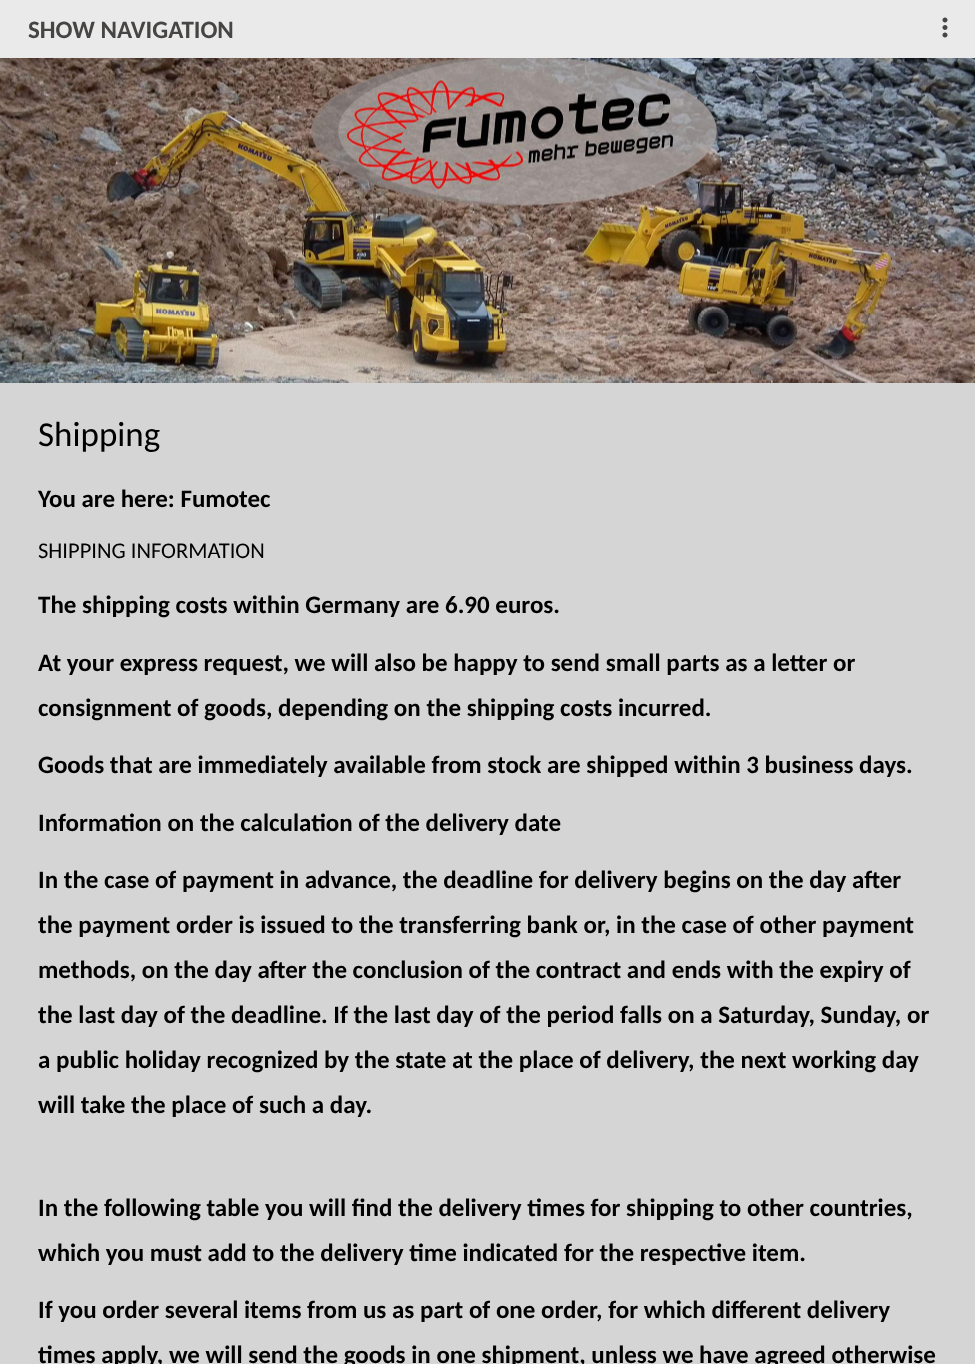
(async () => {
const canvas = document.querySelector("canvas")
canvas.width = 975
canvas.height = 1364
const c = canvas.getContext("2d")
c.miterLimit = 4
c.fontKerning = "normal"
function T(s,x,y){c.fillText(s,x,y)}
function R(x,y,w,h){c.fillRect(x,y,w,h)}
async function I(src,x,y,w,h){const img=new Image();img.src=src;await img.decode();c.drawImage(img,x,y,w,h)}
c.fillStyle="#eaeaea"
R(0,0,975,1364)
await I("1.png",942,17,6,21)
c.font="bold 25px Carlito"
c.fillStyle="#464544"
T("SHOW NAVIGATION",28,38)
await I("2.png",0,58,975,325)
c.fillStyle="#d5d5d5"
R(0,383,975,981)
c.font="35px Carlito"
c.fillStyle="#000"
T("Shipping",38,446)
c.font="bold 25px Carlito"
T("You are here: Fumotec",38,507)
c.font="22.5px Carlito"
T("SHIPPING INFORMATION",38,558)
c.font="bold 25px Carlito"
T("The shipping costs within Germany are 6.90 euros.",38,613)
T("At your express request, we will also be happy to send small parts as a letter or",38,671)
T("consignment of goods, depending on the shipping costs incurred.",38,716)
T("Goods that are immediately available from stock are shipped within 3 business days.",38,773)
T("Information on the calculation of the delivery date",38,831)
T("In the case of payment in advance, the deadline for delivery begins on the day after",38,888)
T("the payment order is issued to the transferring bank or, in the case of other payment",38,933)
T("methods, on the day after the conclusion of the contract and ends with the expiry of",38,978)
T("the last day of the deadline. If the last day of the period falls on a Saturday, Sunday, or",38,1023)
T("a public holiday recognized by the state at the place of delivery, the next working day",38,1068)
T("will take the place of such a day.",38,1113)
T("In the following table you will find the delivery times for shipping to other countries,",38,1216)
T("which you must add to the delivery time indicated for the respective item.",38,1261)
T("If you order several items from us as part of one order, for which different delivery",38,1318)
T("times apply, we will send the goods in one shipment, unless we have agreed otherwise",38,1363)
})()
